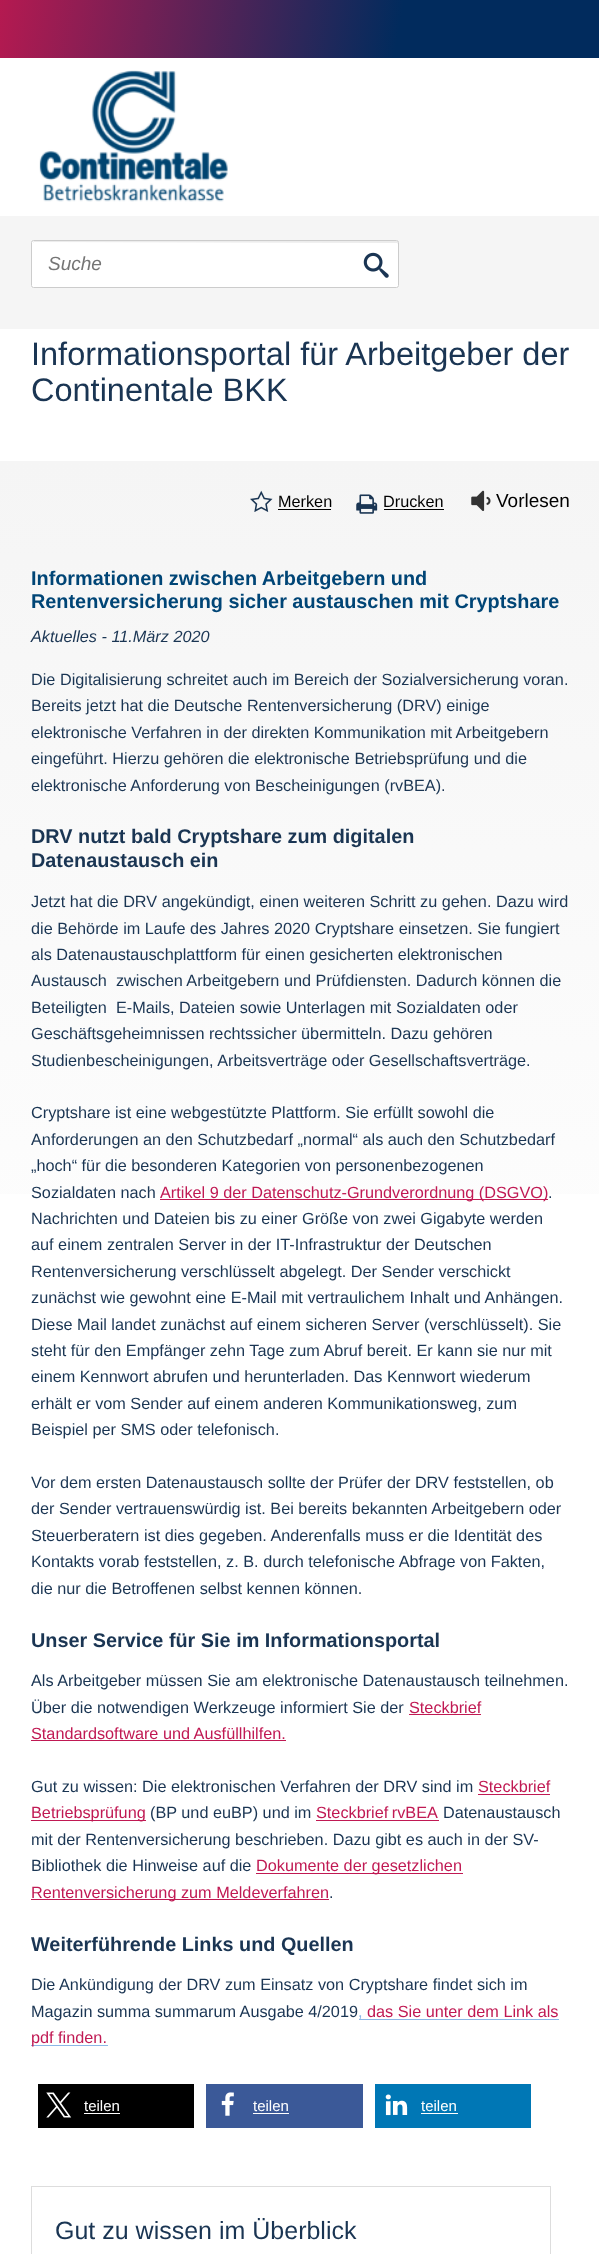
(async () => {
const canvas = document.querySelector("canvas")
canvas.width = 599
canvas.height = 2254
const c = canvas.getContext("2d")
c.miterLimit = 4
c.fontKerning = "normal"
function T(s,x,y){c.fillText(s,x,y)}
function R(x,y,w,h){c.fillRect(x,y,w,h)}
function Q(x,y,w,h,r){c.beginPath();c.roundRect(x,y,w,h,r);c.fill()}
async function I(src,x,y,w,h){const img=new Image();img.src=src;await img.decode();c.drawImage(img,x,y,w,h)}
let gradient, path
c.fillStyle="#fff"
R(0,0,599,2254)
gradient = c.createLinearGradient(-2.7,-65,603,42)
gradient.addColorStop(0,"#bb1950")
gradient.addColorStop(.67,"#012b5d")
c.fillStyle = gradient
R(0,0,599,58)
await I("1.png",39,70,189,132)
c.fillStyle="#f5f5f5"
R(0,216,599,113)
c.fillStyle="#fff"
Q(31,240,368,48,2.5)
c.fillStyle="#ececec"
path = new Path2D("M34 242l363 1l1 1c0 0 1-3-1-3h-363l-1 1v1z")
c.fill(path)
c.beginPath()
c.roundRect(31.5,240.5,367,47,2)
c.strokeStyle="#ccc"
c.stroke()
c.font="italic 19px Liberation Sans"
c.fillStyle="#757575"
T("Suche",48,270)
await I("2.png",363,252,26,26)
c.font="32.5px Liberation Sans"
c.fillStyle="#1a3553"
T("Informationsportal für Arbeitgeber der",31,365)
T("Continentale BKK",31,401)
gradient = c.createLinearGradient(300,461,300,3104)
gradient.addColorStop(0,"#f5f5f5")
gradient.addColorStop(.37,"#fff")
gradient.addColorStop(1,"#fff")
c.fillStyle = gradient
R(0,461,599,733)
await I("3.png",250,490,23,22)
c.font="16.25px Liberation Sans"
c.fillStyle="#000"
T("Merken",278,507)
R(278,509,53,1)
await I("4.png",356,494,22,20)
T("Drucken",383,507)
R(384,509,60,1)
await I("5.png",471,490,20,21)
c.font="19px Liberation Sans"
T("Vorlesen",496,507)
c.font="bold 19.85px Liberation Sans"
c.fillStyle="#004576"
T("Informationen zwischen Arbeitgebern und",31,585)
T("Rentenversicherung sicher austauschen mit Cryptshare",31,608)
c.font="italic 16.25px Liberation Sans"
c.fillStyle="#1a3553"
T("Aktuelles - 11.März 2020",31,642)
c.font="16.25px Liberation Sans"
T("Die Digitalisierung schreitet auch im Bereich der Sozialversicherung voran.",31,685)
T("Bereits jetzt hat die Deutsche Rentenversicherung (DRV) einige",31,711)
T("elektronische Verfahren in der direkten Kommunikation mit Arbeitgebern",31,738)
T("eingeführt. Hierzu gehören die elektronische Betriebsprüfung und die",31,764)
T("elektronische Anforderung von Bescheinigungen (rvBEA).",31,791)
c.font="bold 19.85px Liberation Sans"
T("DRV nutzt bald Cryptshare zum digitalen",31,843)
T("Datenaustausch ein",31,867)
c.font="16.25px Liberation Sans"
T("Jetzt hat die DRV angekündigt, einen weiteren Schritt zu gehen. Dazu wird",31,907)
T("die Behörde im Laufe des Jahres 2020 Cryptshare einsetzen. Sie fungiert",31,934)
T("als Datenaustauschplattform für einen gesicherten elektronischen",31,960)
T("Austausch  zwischen Arbeitgebern und Prüfdiensten. Dadurch können die",31,986)
T("Beteiligten  E-Mails, Dateien sowie Unterlagen mit Sozialdaten oder",31,1013)
T("Geschäftsgeheimnissen rechtssicher übermitteln. Dazu gehören",31,1039)
T("Studienbescheinigungen, Arbeitsverträge oder Gesellschaftsverträge.",31,1066)
T("Cryptshare ist eine webgestützte Plattform. Sie erfüllt sowohl die",31,1118)
T("Anforderungen an den Schutzbedarf „normal“ als auch den Schutzbedarf",31,1145)
T("„hoch“ für die besonderen Kategorien von personenbezogenen",31,1171)
T("Sozialdaten nach",31,1198)
c.fillStyle="#c01953"
R(160,1199,388,1)
T("Artikel 9 der Datenschutz-Grundverordnung (DSGVO)",160,1198)
c.fillStyle="#1a3553"
T(".",548,1198)
T("Nachrichten und Dateien bis zu einer Größe von zwei Gigabyte werden",31,1224)
T("auf einem zentralen Server in der IT-Infrastruktur der Deutschen",31,1250)
T("Rentenversicherung verschlüsselt abgelegt. Der Sender verschickt",31,1277)
T("zunächst wie gewohnt eine E-Mail mit vertraulichem Inhalt und Anhängen.",31,1303)
T("Diese Mail landet zunächst auf einem sicheren Server (verschlüsselt). Sie",31,1330)
T("steht für den Empfänger zehn Tage zum Abruf bereit. Er kann sie nur mit",31,1356)
T("einem Kennwort abrufen und herunterladen. Das Kennwort wiederum",31,1382)
T("erhält er vom Sender auf einem anderen Kommunikationsweg, zum",31,1409)
T("Beispiel per SMS oder telefonisch.",31,1435)
T("Vor dem ersten Datenaustausch sollte der Prüfer der DRV feststellen, ob",31,1488)
T("der Sender vertrauenswürdig ist. Bei bereits bekannten Arbeitgebern oder",31,1514)
T("Steuerberatern ist dies gegeben. Anderenfalls muss er die Identität des",31,1541)
T("Kontakts vorab feststellen, z. B. durch telefonische Abfrage von Fakten,",31,1567)
T("die nur die Betroffenen selbst kennen können.",31,1594)
c.font="bold 19.85px Liberation Sans"
T("Unser Service für Sie im Informationsportal",31,1647)
c.font="16.25px Liberation Sans"
T("Als Arbeitgeber müssen Sie am elektronische Datenaustausch teilnehmen.",31,1686)
T("Über die notwendigen Werkzeuge informiert Sie der",31,1713)
c.fillStyle="#c01953"
T("Steckbrief",409,1713)
R(409,1714,72,1)
T("Standardsoftware und Ausfüllhilfen.",31,1739)
R(31,1740,255,1)
c.fillStyle="#1a3553"
T("Gut zu wissen: Die elektronischen Verfahren der DRV sind im",31,1792)
c.fillStyle="#c01953"
T("Steckbrief",478,1792)
R(478,1794,72,1)
R(31,1820,115,1)
T("Betriebsprüfung",31,1818)
c.fillStyle="#1a3553"
T("(BP und euBP) und im",150,1818)
c.wordSpacing="-1px"
c.fillStyle="#c01953"
T("Steckbrief rvBEA",316,1818)
R(316,1820,123,1)
c.wordSpacing="0px"
c.fillStyle="#1a3553"
T("Datenaustausch",443,1818)
T("mit der Rentenversicherung beschrieben. Dazu gibt es auch in der SV-",31,1845)
T("Bibliothek die Hinweise auf die",31,1871)
c.fillStyle="#c01953"
R(256,1873,207,1)
T("Dokumente der gesetzlichen",256,1871)
R(31,1899,298,1)
T("Rentenversicherung zum Meldeverfahren",31,1898)
c.fillStyle="#1a3553"
T(".",329,1898)
c.font="bold 19.85px Liberation Sans"
T("Weiterführende Links und Quellen",31,1951)
c.font="16.25px Liberation Sans"
T("Die Ankündigung der DRV zum Einsatz von Cryptshare findet sich im",31,1990)
T("Magazin summa summarum Ausgabe 4/2019",31,2017)
c.fillStyle="#8bb7e7"
R(359,2019,200,1)
T(",",358,2017)
c.fillStyle="#c01953"
T("das Sie unter dem Link als",367,2017)
c.fillStyle="#8bb7e7"
R(31,2045,77,1)
c.fillStyle="#c01953"
T("pdf finden.",31,2043)
c.fillStyle="#000"
R(38,2084,156,44)
await I("6.png",46,2092,26,26)
c.font="15px Liberation Sans"
c.fillStyle="#fff"
T("teilen",84,2111)
R(84,2113,36,1)
c.fillStyle="#3b5998"
R(206,2084,157,44)
await I("7.png",221,2092,13,24)
c.fillStyle="#fff"
T("teilen",253,2111)
R(253,2113,36,1)
c.fillStyle="#0077b5"
R(375,2084,156,44)
await I("8.png",385,2094,23,22)
c.fillStyle="#fff"
T("teilen",421,2111)
R(421,2113,37,1)
c.strokeStyle="#ddd"
c.strokeRect(31.5,2186.5,519,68)
c.font="25px Liberation Sans"
c.fillStyle="#1a3553"
T("Gut zu wissen im Überblick",55,2239)
})()
